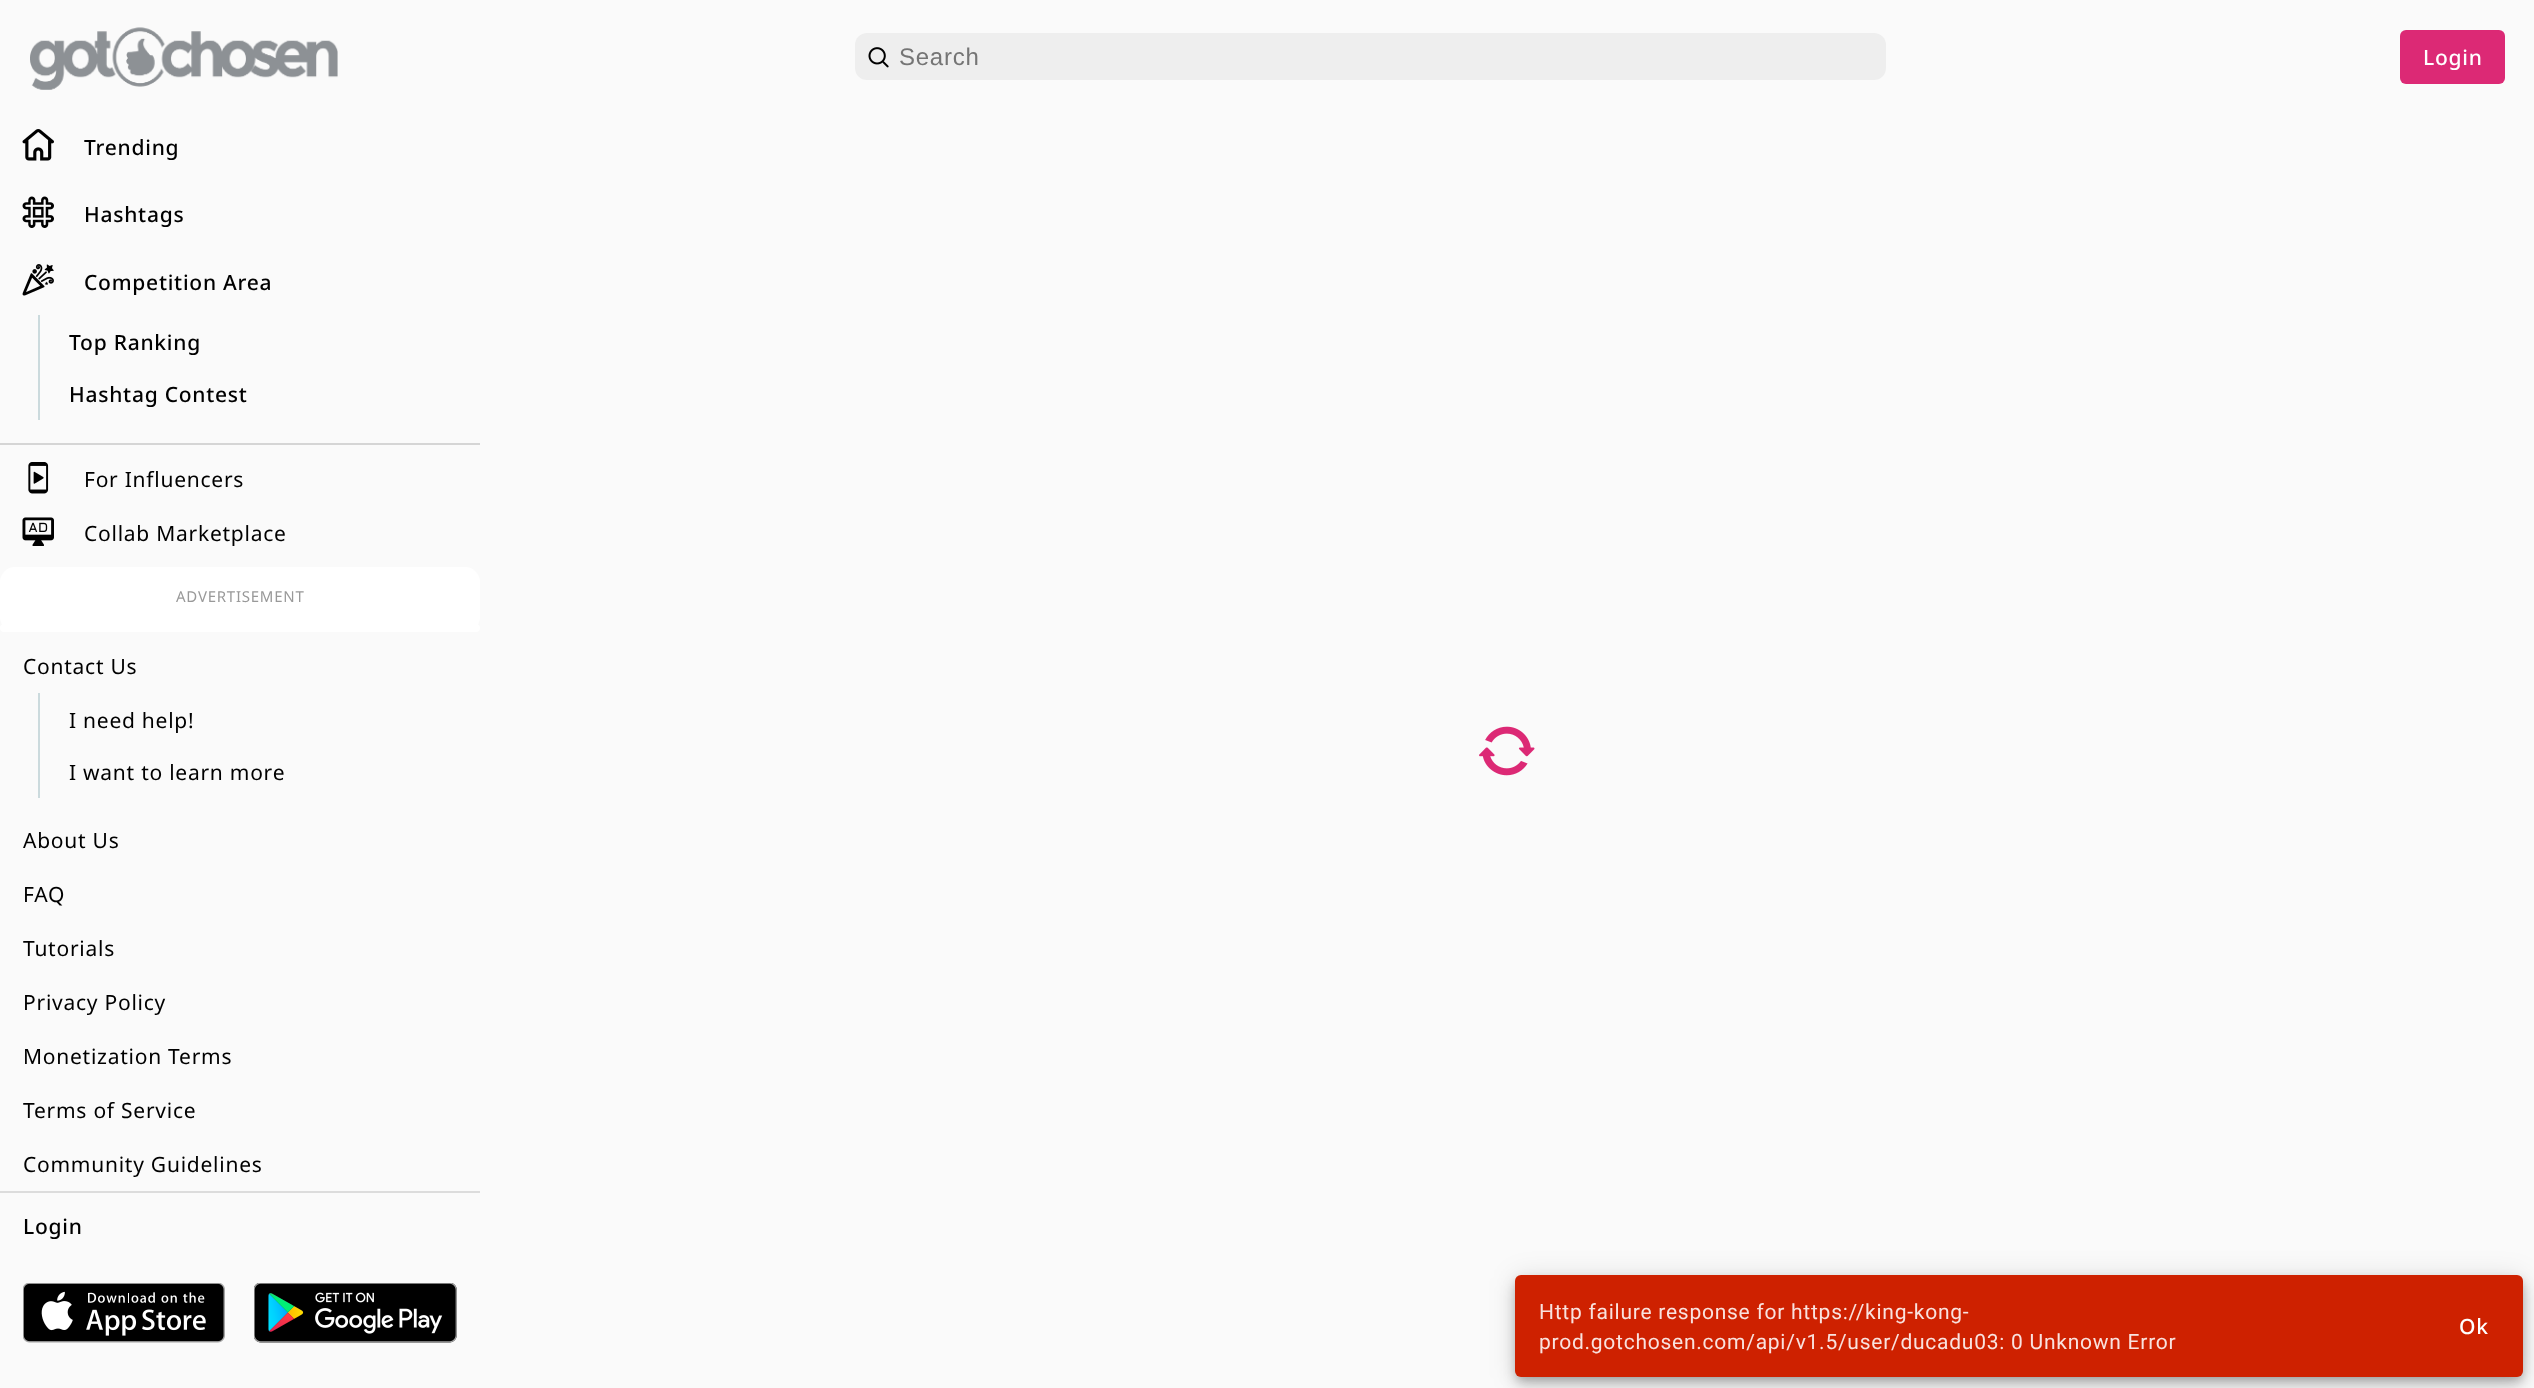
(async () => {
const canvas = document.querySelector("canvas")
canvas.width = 2534
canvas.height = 1388
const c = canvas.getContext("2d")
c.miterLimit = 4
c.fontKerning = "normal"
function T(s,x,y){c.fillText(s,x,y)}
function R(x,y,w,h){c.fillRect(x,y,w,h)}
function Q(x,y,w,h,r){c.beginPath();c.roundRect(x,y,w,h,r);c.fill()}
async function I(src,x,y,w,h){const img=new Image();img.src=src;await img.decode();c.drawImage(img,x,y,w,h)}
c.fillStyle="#fafafa"
R(0,0,2534,1388)
await I("1.png",30,27,308,63)
c.fillStyle="#eee"
Q(855,33,1031,47,12)
await I("2.png",868,47,21,21)
c.letterSpacing="0.75px"
c.font="24px Liberation Sans"
c.fillStyle="#757575"
T("Search",899,65)
c.fillStyle="#dc2975"
Q(2400,30,105,54,6)
c.font="500 21px Noto Sans"
c.fillStyle="#fff"
T("Login",2423,65)
await I("3.png",22,129,32,32)
c.fillStyle="#000"
T("Trending",84,155)
await I("4.png",22,196,32,32)
T("Hashtags",84,222)
await I("5.png",22,264,32,32)
T("Competition Area",84,290)
c.fillStyle="#cbdadd"
R(38,315,2,105)
c.fillStyle="#000"
T("Top Ranking",69,350)
T("Hashtag Contest",69,402)
c.fillStyle="#d5d5d5"
R(0,443,480,2)
await I("6.png",28,462,21,32)
c.font="21px Noto Sans"
c.fillStyle="#000"
T("For Influencers",84,487)
await I("7.png",22,517,32,29)
T("Collab Marketplace",84,541)
c.fillStyle="#fff"
Q(0,567,480,65,15)
c.font="15px Noto Sans"
c.fillStyle="#999"
T("ADVERTISEMENT",176,602)
c.fillStyle="#fff"
Q(0,624,480,8,4)
c.font="21px Noto Sans"
c.fillStyle="#000"
T("Contact Us",23,674)
c.fillStyle="#cbdadd"
R(38,693,2,105)
c.fillStyle="#000"
T("I need help!",69,728)
T("I want to learn more",69,780)
T("About Us",23,848)
T("FAQ",23,902)
T("Tutorials",23,956)
T("Privacy Policy",23,1010)
T("Monetization Terms",23,1064)
T("Terms of Service",23,1118)
T("Community Guidelines",23,1172)
c.fillStyle="#dcdcdc"
R(0,1191,480,2)
c.font="500 21px Noto Sans"
c.fillStyle="#000"
T("Login",23,1234)
await I("8.png",23,1283,202,60)
await I("9.png",254,1283,203,60)
await I("10.png",1479,726,56,50)
c.fillStyle="#0000001f"
c.filter="blur(13.5px)"
c.beginPath()
c.roundRect(1515,1277,1008,102,6)
c.fill()
c.filter="none"
c.fillStyle="#00000024"
c.filter="blur(7.5px)"
c.beginPath()
c.roundRect(1515,1284,1008,102,6)
c.fill()
c.filter="none"
c.fillStyle="#00000033"
c.filter="blur(4px)"
c.beginPath()
c.roundRect(1517,1281,1005,99,5)
c.fill()
c.filter="none"
c.fillStyle="#ce2100"
Q(1515,1275,1008,102,6)
c.font="21px Roboto"
c.fillStyle="#f9e2de"
T("Http failure response for https://king-kong-",1539,1319)
T("prod.gotchosen.com/api/v1.5/user/ducadu03: 0 Unknown Error",1539,1349)
c.font="500 21px Noto Sans"
c.fillStyle="#fff"
T("Ok",2459,1334)
})()
